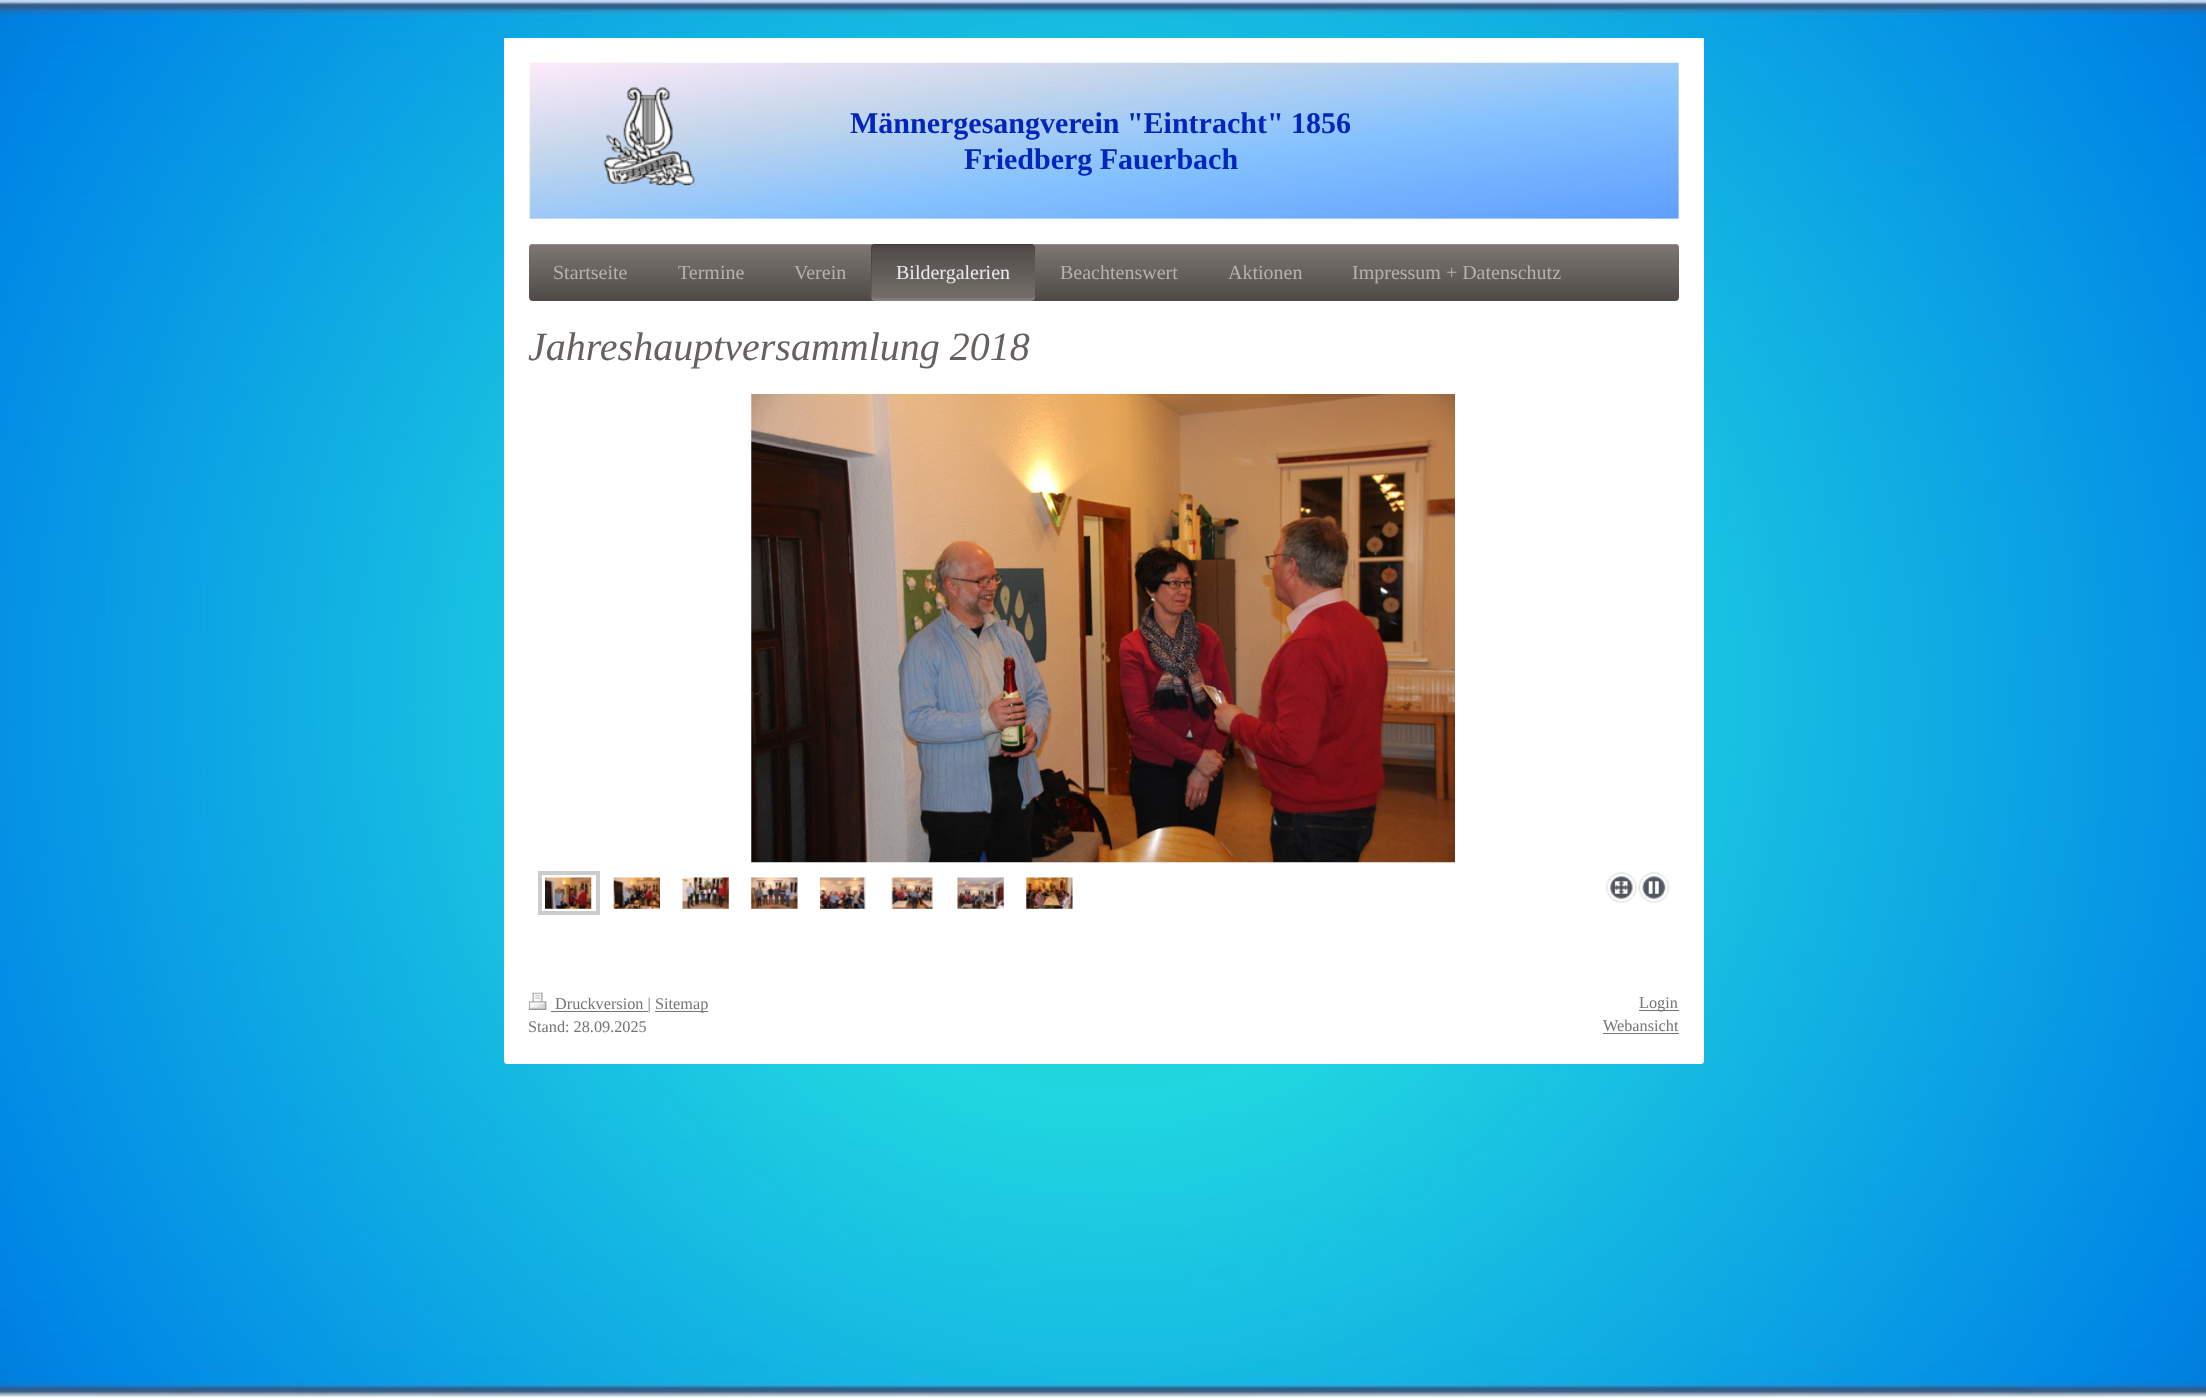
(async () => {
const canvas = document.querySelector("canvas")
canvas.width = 2206
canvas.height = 1398
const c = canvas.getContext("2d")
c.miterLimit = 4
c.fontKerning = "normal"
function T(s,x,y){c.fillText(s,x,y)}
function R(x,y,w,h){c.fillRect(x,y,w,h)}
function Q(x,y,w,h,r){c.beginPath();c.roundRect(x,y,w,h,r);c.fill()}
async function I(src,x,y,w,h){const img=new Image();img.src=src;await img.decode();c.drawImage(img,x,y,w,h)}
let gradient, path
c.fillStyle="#fff"
R(0,0,2206,1398)
await I("1.png",0,0,2206,1398)
c.beginPath()
c.roundRect(504,38,1200,1026,[0,0,4,4])
c.fill()
c.fillStyle="#eee"
R(529,63,1150,156)
await I("2.png",529,62,1150,157)
await I("3.png",603,87,93,99)
c.font="bold 30px Liberation Serif"
c.fillStyle="#0325bc"
T("Männergesangverein \"Eintracht\" 1856",850,133)
T("Friedberg Fauerbach",964,169)
gradient = c.createLinearGradient(529,244,529,301)
gradient.addColorStop(0,"#7e7873")
gradient.addColorStop(1,"#4e4a47")
c.fillStyle = gradient
Q(529,244,1150,57,4)
c.fillStyle="#635e5b"
path = new Path2D("M532 245h1143c2 0 4 2 4 4c0-3-1-5-4-5h-1142c-3 0-4 2-4 5c0-2 1-4 3-4z")
c.fill(path)
c.fillStyle="#ffffff4d"
path = new Path2D("M532 245h1143c2 0 4 2 4 4c0-3-1-5-4-5h-1142c-3 0-4 2-4 5c0-2 1-4 3-4z")
c.fill(path)
c.font="20px Liberation Serif"
c.fillStyle="#b5b1af"
T("Startseite",553,279)
T("Termine",678,279)
T("Verein",794,279)
gradient = c.createLinearGradient(871,301,871,244)
gradient.addColorStop(0,"#76706c")
gradient.addColorStop(1,"#4e4a47")
c.fillStyle = gradient
Q(871,244,164,57,4)
c.fillStyle="#00000026"
path = new Path2D("M876 245h156h2c-1 0-2-1-3-1h-156c-2 0-4 2-4 4v49c0 1 0 2 1 3v-43c0-2-2-12 4-12z")
c.fill(path)
c.fillStyle="#0000000a"
path = new Path2D("M875 248h156c2 0 4 1 4 3v-3c0-2-2-4-4-4h-156c-2 0-4 2-4 4v3c0-2 2-3 4-3z")
c.fill(path)
c.fillStyle="#ffffff14"
path = new Path2D("M871 294v3c0 2 2 4 4 4h156c2 0 4-2 4-4v-3c0 2-2 4-4 4h-156c-2 0-4-2-4-4z")
c.fill(path)
c.fillStyle="#ffffff1a"
path = new Path2D("M871 296c0 2 1 4 3 5h158c2-1 3-3 3-5c0 2-2 4-4 4h-156c-2 0-4-2-4-4z")
c.fill(path)
c.fillStyle="#ecebeb"
T("Bildergalerien",896,279)
c.fillStyle="#b5b1af"
T("Beachtenswert",1060,279)
T("Aktionen",1228,279)
T("Impressum + Datenschutz",1352,279)
c.font="italic 40px Liberation Serif"
c.fillStyle="#66615d"
T("Jahreshauptversammlung 2018",528,360)
await I("4.png",751,394,704,469)
c.strokeStyle="#ccc"
c.lineWidth=4
c.strokeRect(540,873,58,40)
await I("5.png",545,877,47,32)
await I("6.png",613,877,47,32)
await I("7.png",682,877,47,32)
await I("8.png",751,877,47,32)
await I("9.png",820,877,47,32)
await I("10.png",891,877,42,32)
await I("11.png",957,877,47,32)
await I("12.png",1026,877,47,32)
await I("13.png",1606,872,31,31)
await I("14.png",1638,872,32,31)
c.fillStyle="#fff"
c.beginPath()
c.roundRect(504,968,1200,96,[0,0,4,4])
c.fill()
await I("15.png",528,992,19,18)
c.fillStyle="#757575"
R(551,1011,97,1)
c.font="16.25px Liberation Serif"
T("Druckversion |",555,1009)
R(655,1011,53,1)
T("Sitemap",655,1009)
T("Stand: 28.09.2025",528,1032)
R(1639,1010,40,1)
T("Login",1639,1008)
T("Webansicht",1603,1031)
R(1603,1033,76,1)
})()
